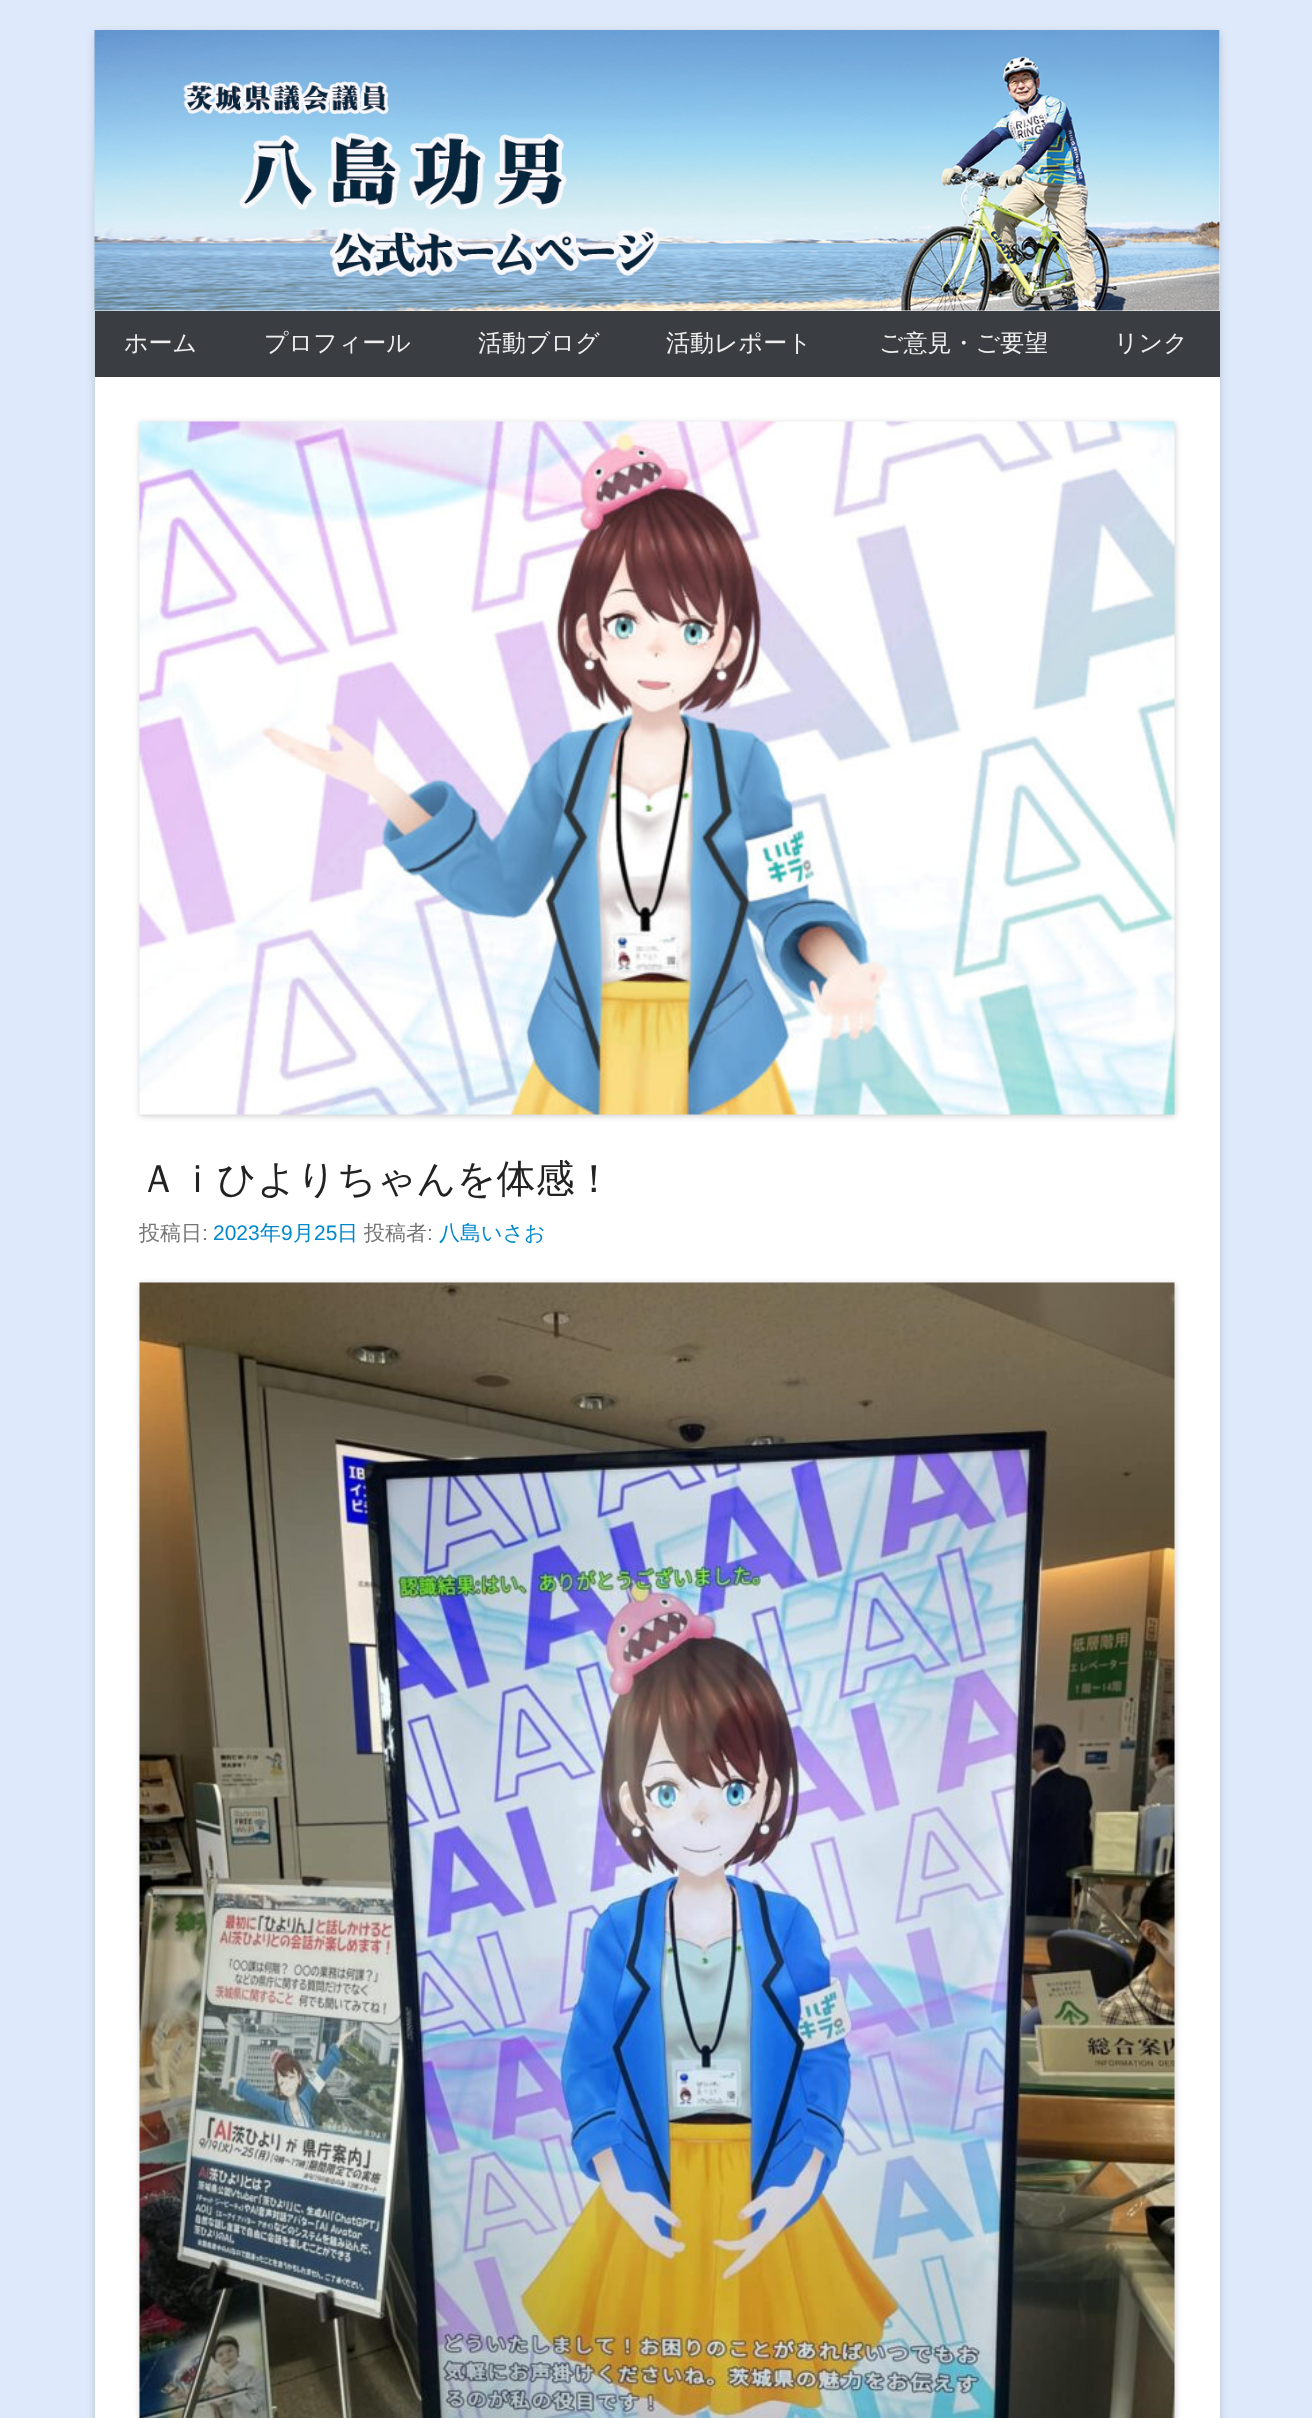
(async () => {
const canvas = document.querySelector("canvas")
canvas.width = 1312
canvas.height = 2418
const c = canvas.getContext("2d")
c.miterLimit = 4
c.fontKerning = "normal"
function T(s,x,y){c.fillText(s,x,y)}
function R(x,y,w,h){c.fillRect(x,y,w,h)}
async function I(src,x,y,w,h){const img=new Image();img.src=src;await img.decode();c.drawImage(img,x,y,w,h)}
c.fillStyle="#deeafc"
R(0,0,1312,2418)
c.fillStyle="#6464644d"
c.filter="blur(4.5px)"
c.beginPath()
c.rect(95,33,1125,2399)
c.fill()
c.filter="none"
c.fillStyle="#fff"
R(95,30,1125,2388)
await I("1.png",94,30,1126,281)
c.fillStyle="#3a3d41"
R(95,311,1125,66)
c.font="500 24px WenQuanYi Zen Hei"
c.fillStyle="#eee"
T("ホーム",124,351)
T("プロフィール",264,351)
T("活動ブログ",478,351)
T("活動レポート",666,351)
T("ご意見・ご要望",879,351)
T("リンク",1114,351)
c.fillStyle="#00000033"
c.filter="blur(3px)"
c.beginPath()
c.rect(140,423,1035,693)
c.fill()
c.filter="none"
await I("2.png",139,421,1036,694)
c.font="500 39px WenQuanYi Zen Hei"
c.fillStyle="#222"
T("Ａｉひよりちゃんを体感！",139,1192)
c.font="500 21px WenQuanYi Zen Hei"
c.fillStyle="#757575"
T("投稿日",139,1240)
c.font="21px Liberation Sans"
T(":",202,1240)
c.fillStyle="#08c"
T("2023",213,1240)
c.font="500 21px WenQuanYi Zen Hei"
T("年",260,1240)
c.font="21px Liberation Sans"
T("9",281,1240)
c.font="500 21px WenQuanYi Zen Hei"
T("月",293,1240)
c.font="21px Liberation Sans"
T("25",314,1240)
c.font="500 21px WenQuanYi Zen Hei"
T("日",337,1240)
c.fillStyle="#757575"
T("投稿者",364,1240)
c.font="21px Liberation Sans"
T(":",427,1240)
c.font="500 21px WenQuanYi Zen Hei"
c.fillStyle="#08c"
T("八島いさお",439,1240)
c.fillStyle="#00000033"
c.filter="blur(3px)"
c.beginPath()
c.rect(140,1284,1035,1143)
c.fill()
c.filter="none"
await I("3.png",139,1282,1036,1136)
})()
